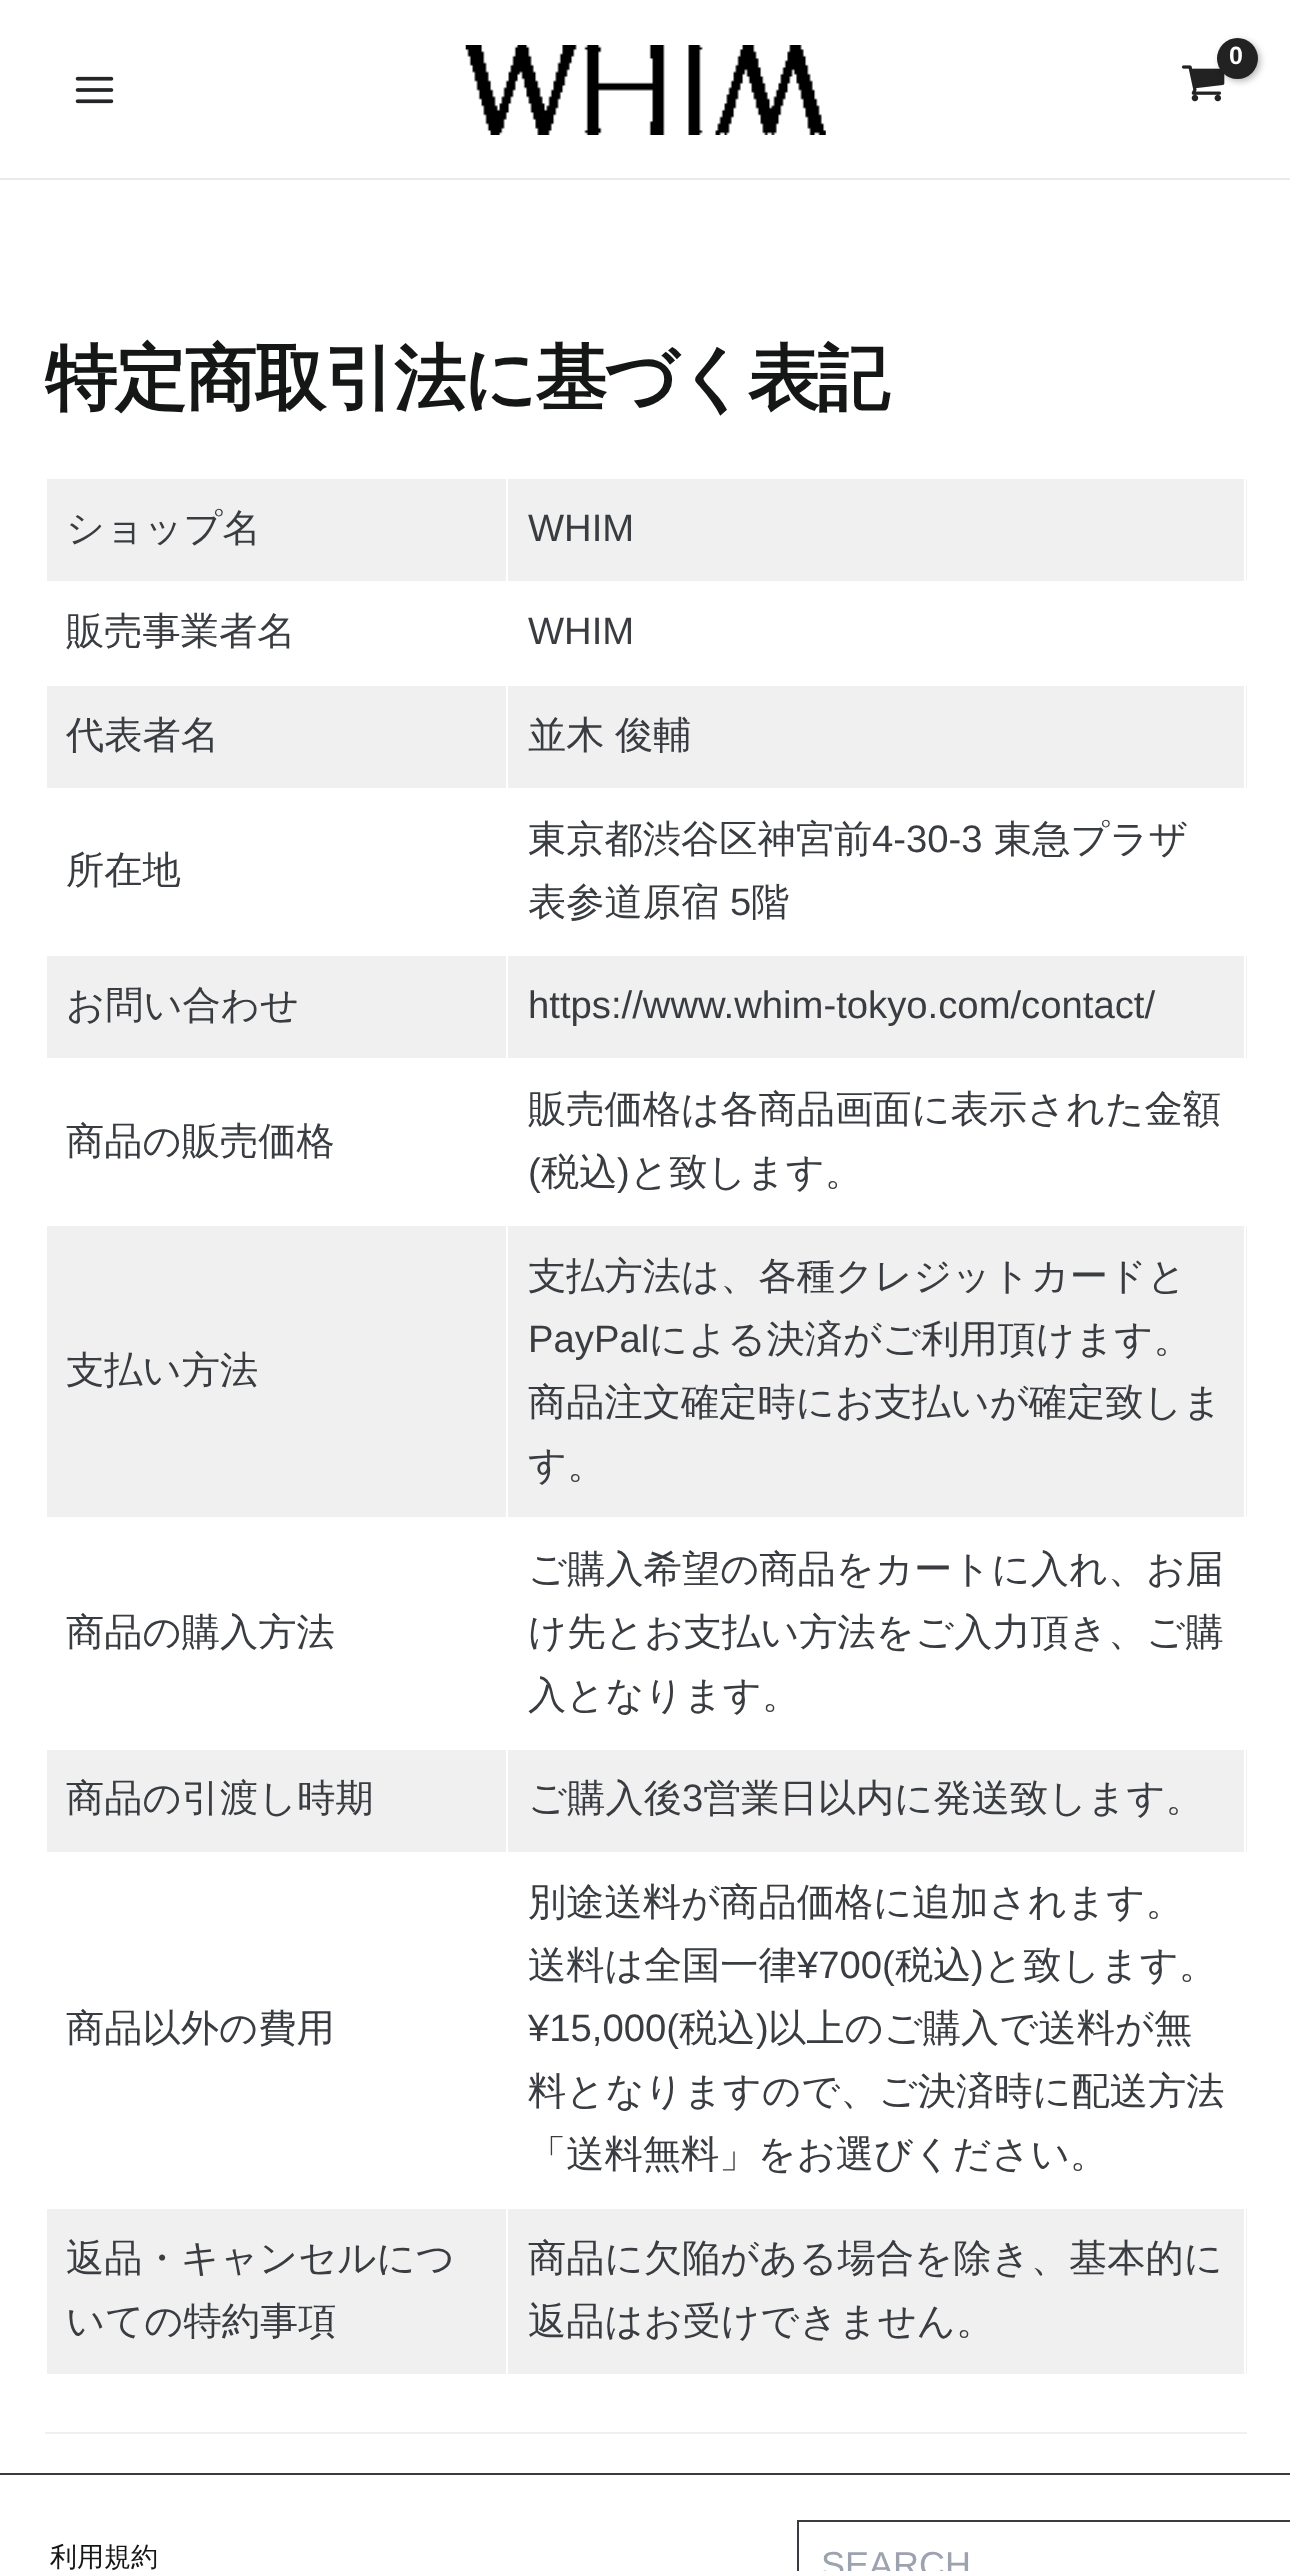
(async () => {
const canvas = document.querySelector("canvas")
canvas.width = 1290
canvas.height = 2571
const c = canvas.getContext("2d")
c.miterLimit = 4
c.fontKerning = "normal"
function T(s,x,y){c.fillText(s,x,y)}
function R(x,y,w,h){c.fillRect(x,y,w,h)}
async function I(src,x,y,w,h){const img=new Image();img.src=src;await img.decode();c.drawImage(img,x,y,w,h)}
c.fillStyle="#fff"
R(0,0,1290,2571)
c.fillStyle="#eaeaea"
R(0,178,1290,2)
await I("1.png",465,45,361,90)
await I("2.png",1181,65,44,37)
c.fillStyle="#0000004d"
c.filter="blur(3.5px)"
c.beginPath()
c.roundRect(1220,41,40,40,20)
c.fill()
c.filter="none"
c.fillStyle="#222"
c.beginPath()
c.arc(1237.5,58.5,20.5,0,7)
c.fill()
c.letterSpacing="-1px"
c.font="bold 25px Liberation Sans"
c.fillStyle="#fff"
T("0",1229,64)
await I("3.png",75,76,39,28)
c.letterSpacing="-2.25px"
c.font="bold 72px WenQuanYi Zen Hei"
c.fillStyle="#151616"
T("特定商取引法に基づく表記",45,403)
c.fillStyle="#f0f0f0"
R(45,2432,1202,2)
R(47,479,1200,102)
c.letterSpacing="0px"
c.font="500 38.25px WenQuanYi Zen Hei"
c.fillStyle="#393c40"
T("ショップ名",66,541)
c.fillStyle="#fff"
R(1244,477,2,106)
R(506,477,2,106)
c.font="38.25px Liberation Sans"
c.fillStyle="#393c40"
T("WHIM",528,541)
c.font="500 38.25px WenQuanYi Zen Hei"
T("販売事業者名",66,644)
c.font="38.25px Liberation Sans"
T("WHIM",528,644)
c.fillStyle="#f0f0f0"
R(47,686,1200,102)
c.font="500 38.25px WenQuanYi Zen Hei"
c.fillStyle="#393c40"
T("代表者名",66,748)
c.fillStyle="#fff"
R(1244,684,2,106)
R(506,684,2,106)
c.wordSpacing="-1px"
c.fillStyle="#393c40"
T("並木 俊輔",528,748)
c.wordSpacing="0px"
T("所在地",66,883)
T("東京都渋谷区神宮前",528,852)
c.font="38.25px Liberation Sans"
T("4-30-3",872,852)
c.font="500 38.25px WenQuanYi Zen Hei"
T("東急プラザ",994,852)
T("表参道原宿",528,915)
c.font="38.25px Liberation Sans"
T("5",730,915)
c.font="500 38.25px WenQuanYi Zen Hei"
T("階",751,915)
c.fillStyle="#f0f0f0"
R(47,956,1200,102)
c.fillStyle="#393c40"
T("お問い合わせ",66,1018)
c.fillStyle="#fff"
R(1244,954,2,106)
R(506,954,2,106)
c.font="38.25px Liberation Sans"
c.fillStyle="#393c40"
T("https://www.whim-tokyo.com/contact/",528,1018)
c.font="500 38.25px WenQuanYi Zen Hei"
T("商品の販売価格",66,1154)
T("販売価格は各商品画面に表示された金額",528,1122)
c.font="38.25px Liberation Sans"
T("(",528,1185)
c.font="500 38.25px WenQuanYi Zen Hei"
T("税込",541,1185)
c.font="38.25px Liberation Sans"
T(")",617,1185)
c.font="500 38.25px WenQuanYi Zen Hei"
T("と致します。",630,1185)
c.fillStyle="#f0f0f0"
R(47,1226,1200,291)
c.fillStyle="#393c40"
T("支払い方法",66,1383)
c.fillStyle="#fff"
R(1244,1224,2,295)
R(506,1224,2,295)
c.fillStyle="#393c40"
T("支払方法は、各種クレジットカードと",528,1289)
c.font="38.25px Liberation Sans"
T("PayPal",528,1352)
c.font="500 38.25px WenQuanYi Zen Hei"
T("による決済がご利用頂けます。",649,1352)
T("商品注文確定時にお支払いが確定致しま",528,1415)
T("す。",528,1478)
T("商品の購入方法",66,1645)
T("ご購入希望の商品をカートに入れ、お届",528,1582)
T("け先とお支払い方法をご入力頂き、ご購",528,1645)
T("入となります。",528,1708)
c.fillStyle="#f0f0f0"
R(47,1750,1200,102)
c.fillStyle="#393c40"
T("商品の引渡し時期",66,1811)
c.fillStyle="#fff"
R(1244,1748,2,106)
R(506,1748,2,106)
c.fillStyle="#393c40"
T("ご購入後",528,1811)
c.font="38.25px Liberation Sans"
T("3",682,1811)
c.font="500 38.25px WenQuanYi Zen Hei"
T("営業日以内に発送致します。",703,1811)
T("商品以外の費用",66,2041)
T("別途送料が商品価格に追加されます。",528,1915)
T("送料は全国一律",528,1978)
c.font="38.25px Liberation Sans"
T("¥700(",797,1978)
c.font="500 38.25px WenQuanYi Zen Hei"
T("税込",895,1978)
c.font="38.25px Liberation Sans"
T(")",971,1978)
c.font="500 38.25px WenQuanYi Zen Hei"
T("と致します。",984,1978)
c.font="38.25px Liberation Sans"
T("¥15,000(",528,2041)
c.font="500 38.25px WenQuanYi Zen Hei"
T("税込",679,2041)
c.font="38.25px Liberation Sans"
T(")",756,2041)
c.font="500 38.25px WenQuanYi Zen Hei"
T("以上のご購入で送料が無",768,2041)
T("料となりますので、ご決済時に配送方法",528,2104)
T("「送料無料」をお選びください。",528,2167)
c.fillStyle="#f0f0f0"
R(47,2209,1200,165)
c.fillStyle="#393c40"
T("返品・キャンセルにつ",66,2271)
T("いての特約事項",66,2334)
c.fillStyle="#fff"
R(1244,2207,2,169)
R(506,2207,2,169)
c.fillStyle="#393c40"
T("商品に欠陥がある場合を除き、基本的に",528,2271)
T("返品はお受けできません。",528,2334)
R(0,2473,1290,2)
c.font="500 27px WenQuanYi Zen Hei"
c.fillStyle="#151616"
T("利用規約",50,2566)
c.strokeStyle="#393c40"
c.lineWidth=2
c.strokeRect(798,2521,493,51)
c.font="36px Liberation Sans"
c.fillStyle="#9ca3af"
T("SEARCH",821,2577)
})()
